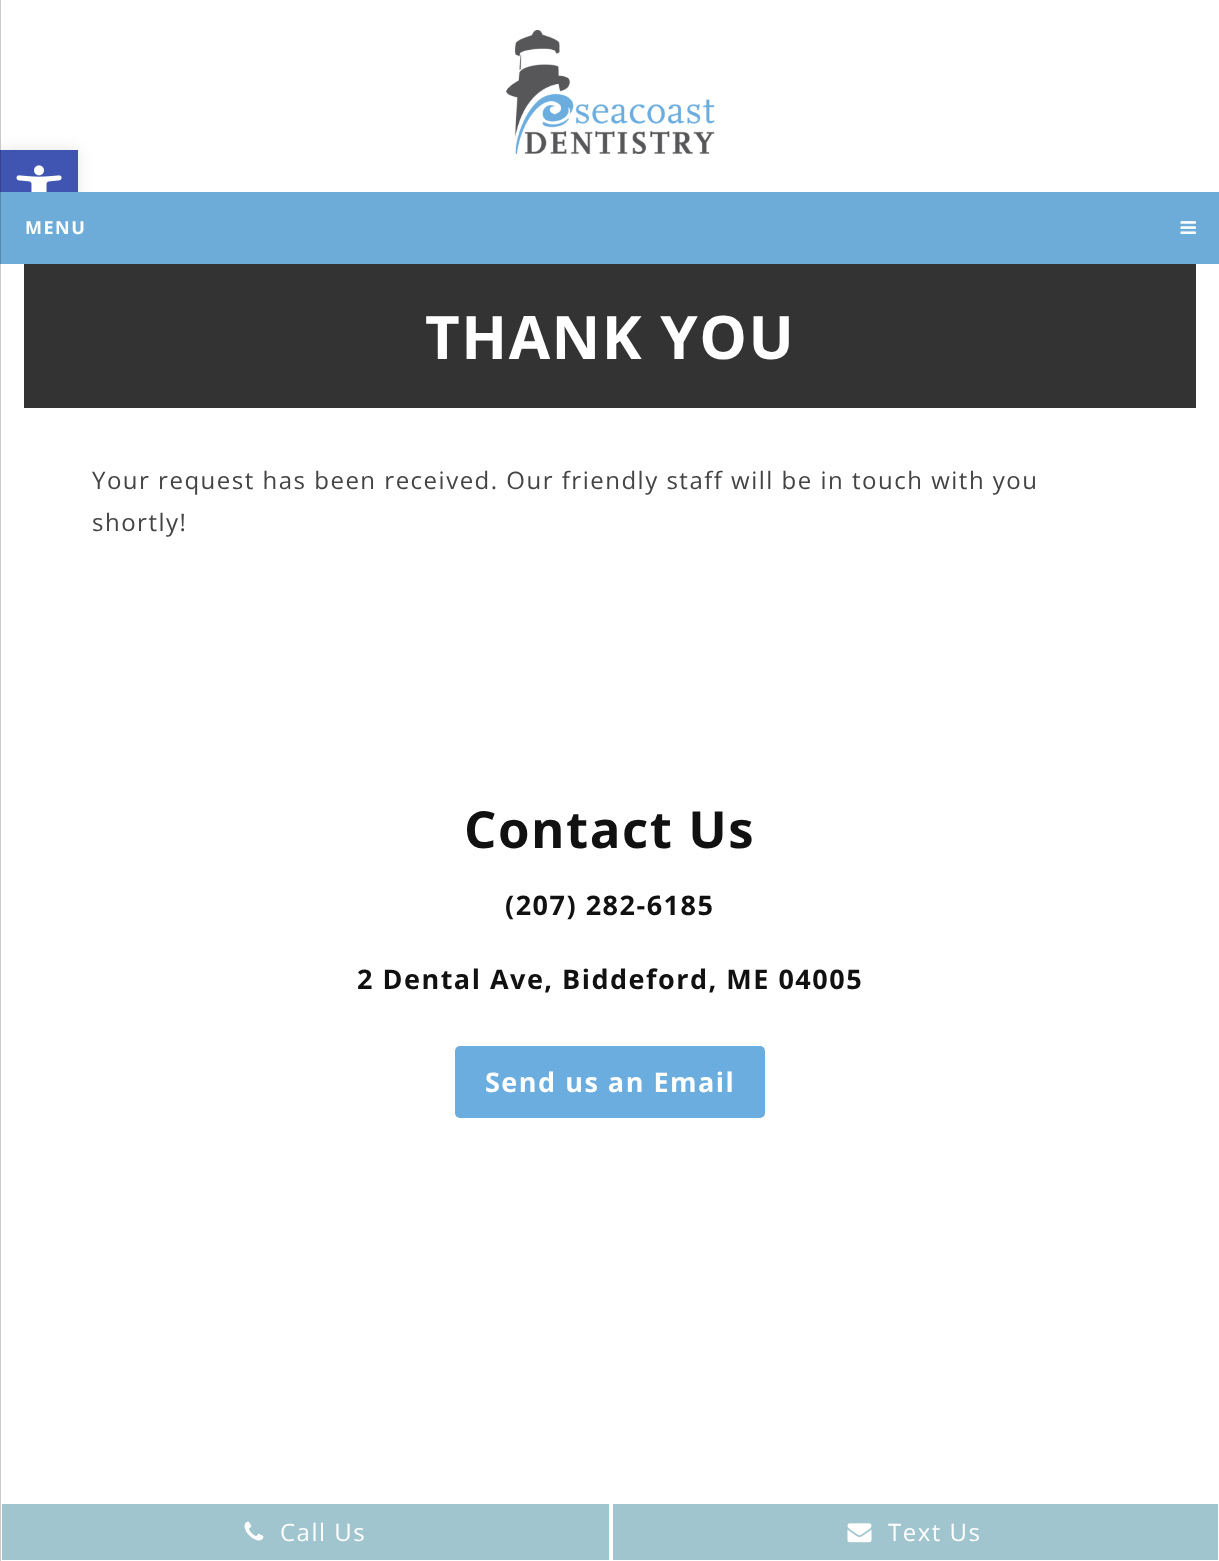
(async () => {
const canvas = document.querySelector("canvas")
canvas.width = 1219
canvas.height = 1561
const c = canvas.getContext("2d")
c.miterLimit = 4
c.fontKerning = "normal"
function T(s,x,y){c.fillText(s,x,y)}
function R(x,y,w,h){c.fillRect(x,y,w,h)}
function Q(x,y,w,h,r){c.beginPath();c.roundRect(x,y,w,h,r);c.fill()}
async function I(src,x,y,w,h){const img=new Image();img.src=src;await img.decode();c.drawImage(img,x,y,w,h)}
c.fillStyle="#fff"
R(0,0,1219,1561)
c.fillStyle="#0000001a"
c.filter="blur(7.5px)"
c.beginPath()
c.rect(0,150,78,78)
c.fill()
c.filter="none"
c.fillStyle="#4054b2"
R(0,150,78,42)
await I("1.png",16,165,46,27)
c.fillStyle="#6dabd8"
R(0,192,1219,72)
c.fillStyle="#00000033"
R(0,0,1,1561)
await I("2.png",505,30,210,124)
c.letterSpacing="1.5px"
c.font="bold 18px Open Sans"
c.fillStyle="#fff"
T("MENU",25,234)
await I("3.png",1180,221,16,13)
c.fillStyle="#333"
R(24,264,1172,144)
c.font="bold 60px Open Sans"
c.fillStyle="#fff"
T("THANK YOU",425,359)
c.font="24px Open Sans"
c.fillStyle="#444"
T("Your request has been received. Our friendly staff will be in touch with you",92,489)
T("shortly!",92,531)
c.font="bold 51px Open Sans"
c.fillStyle="#111"
T("Contact Us",464,848)
c.font="bold 27px Open Sans"
T("(207) 282-6185",505,915)
T("2 Dental Ave, Biddeford, ME 04005",357,989)
c.fillStyle="#6badde"
Q(455,1046,310,72,5)
c.fillStyle="#fff"
T("Send us an Email",485,1092)
c.fillStyle="#a0c5cf"
R(2,1504,607,56)
await I("4.png",244,1521,20,20)
c.font="24px Open Sans"
c.fillStyle="#fff"
T("Call Us",280,1541)
c.fillStyle="#a0c5cf"
R(613,1504,605,56)
await I("5.png",847,1523,25,20)
c.fillStyle="#fff"
T("Text Us",888,1541)
})()
